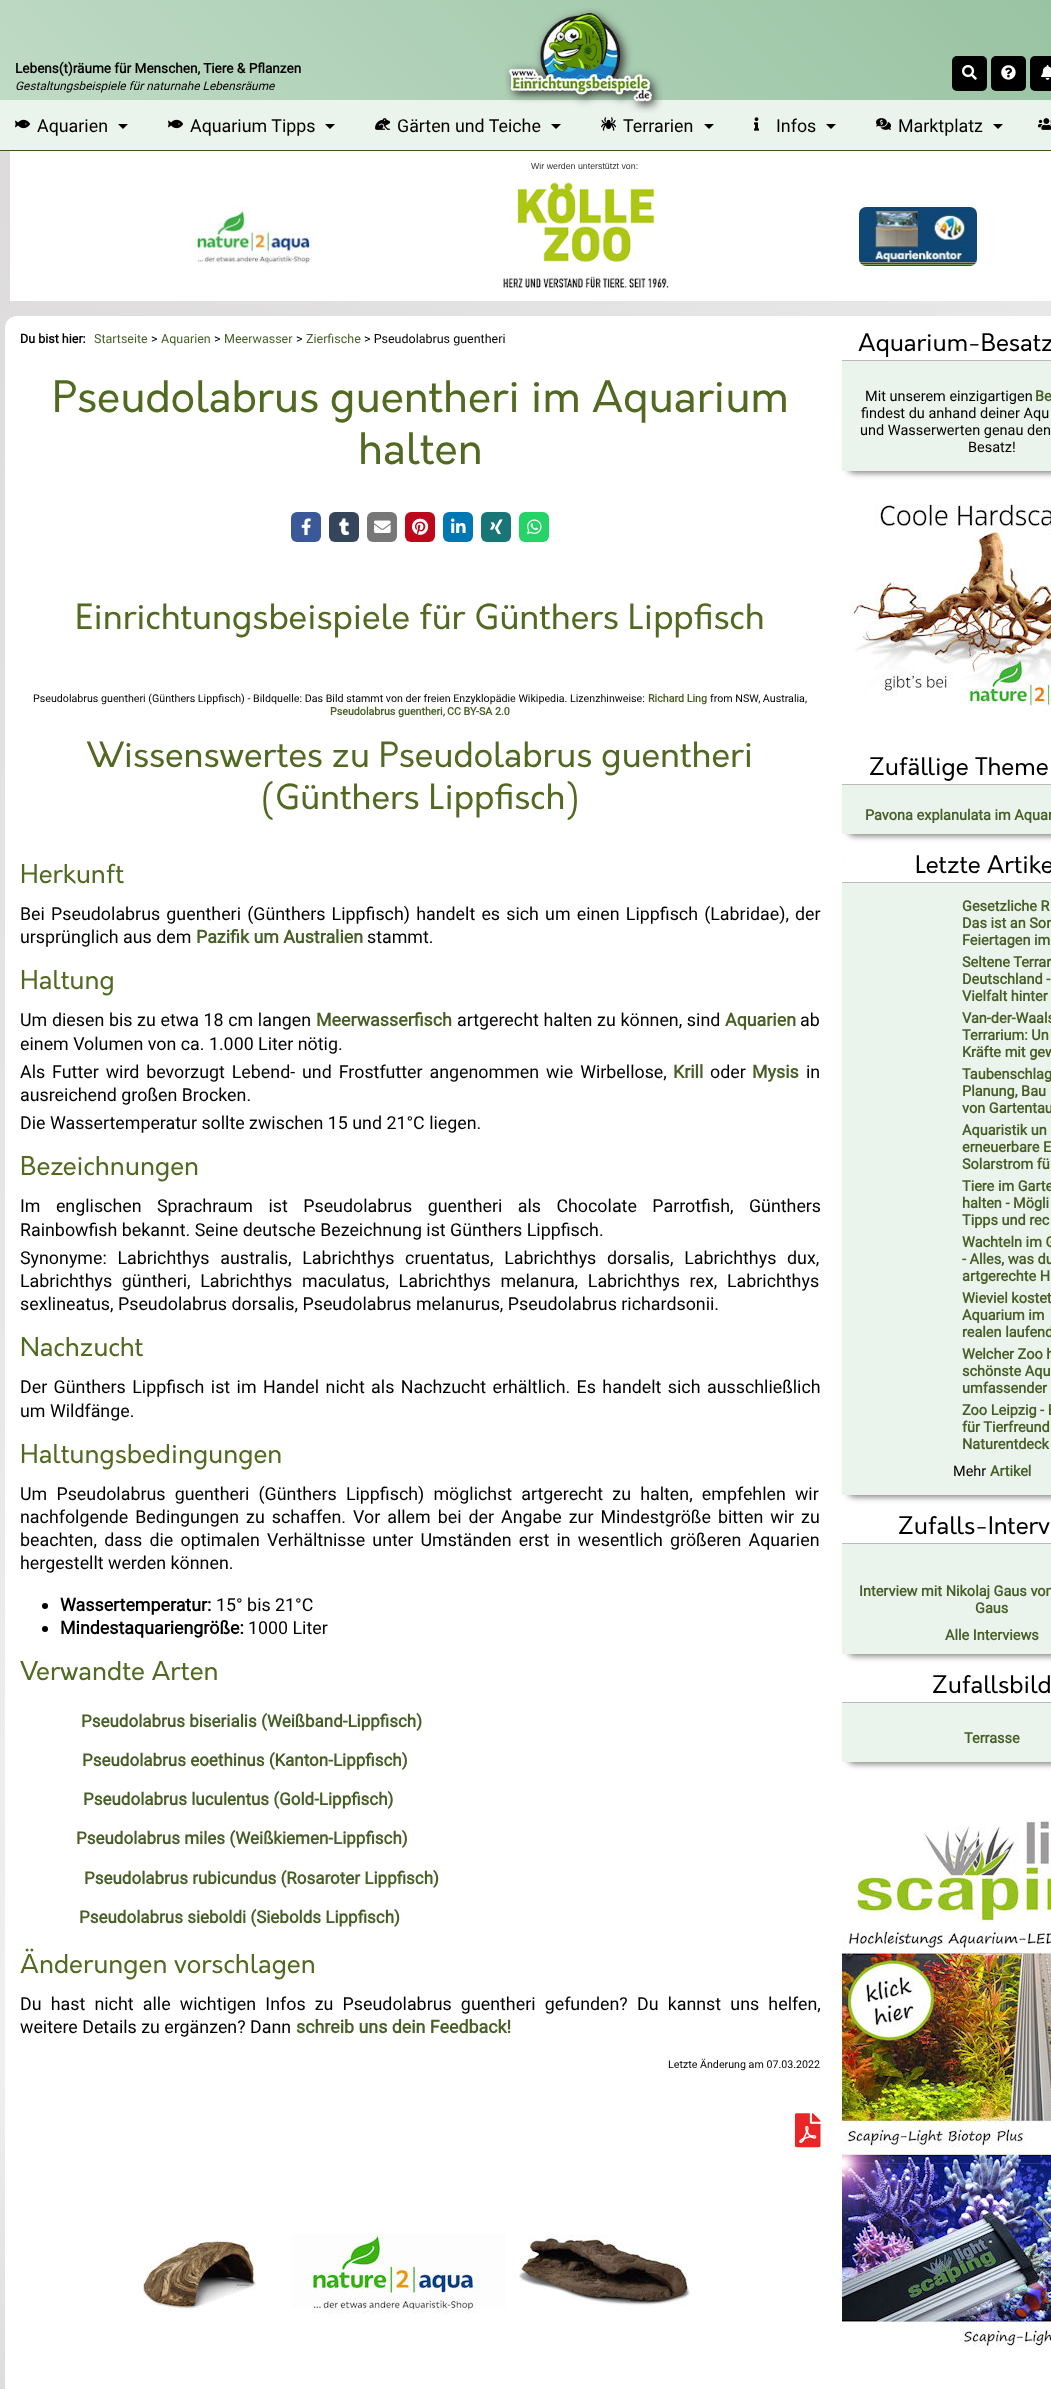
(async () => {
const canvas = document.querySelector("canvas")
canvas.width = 1051
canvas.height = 2389
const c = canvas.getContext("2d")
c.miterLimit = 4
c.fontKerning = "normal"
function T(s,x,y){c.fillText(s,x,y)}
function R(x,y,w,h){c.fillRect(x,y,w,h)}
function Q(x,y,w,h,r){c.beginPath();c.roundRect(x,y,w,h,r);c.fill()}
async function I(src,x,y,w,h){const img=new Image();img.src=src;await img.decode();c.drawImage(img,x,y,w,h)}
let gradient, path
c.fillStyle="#fff"
R(0,0,1051,2389)
gradient = c.createLinearGradient(-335,335,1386,2055)
gradient.addColorStop(0,"#dbd9d9")
gradient.addColorStop(.6,"#f0f0f0")
gradient.addColorStop(1,"#a0a0a0")
c.fillStyle = gradient
R(0,151,1051,2238)
c.fillStyle="#38571a"
R(0,150,1051,1)
gradient = c.createLinearGradient(265,365,895,-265)
gradient.addColorStop(0,"#bfdac5")
gradient.addColorStop(1,"#95c19f")
c.fillStyle = gradient
R(0,0,1051,100)
c.font="bold 13.6px Roboto"
c.fillStyle="#000"
T("Lebens(t)räume für Menschen, Tiere & Pflanzen",15,73)
c.font="italic 11.9px Roboto"
T("Gestaltungsbeispiele für naturnahe Lebensräume",15,90)
c.fillStyle="#eaf3ec"
R(0,100,1051,50)
await I("1.png",505,8,158,105)
c.fillStyle="#000"
Q(952,56,35,35,5)
await I("2.png",962,65,15,15)
Q(991,56,35,35,5)
await I("3.png",1001,65,15,15)
Q(1030,56,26,35,5)
await I("4.png",1041,65,10,15)
await I("5.png",15,119,15,10)
c.font="17.85px Roboto"
T("Aquarien",37,132)
path = new Path2D("M118 124h10l-5 5z")
c.fill(path)
await I("5.png",168,119,15,10)
T("Aquarium Tipps",190,132)
path = new Path2D("M325 124h10l-5 5z")
c.fill(path)
await I("6.png",375,118,16,12)
T("Gärten und Teiche",397,132)
path = new Path2D("M551 124h10l-5 5z")
c.fill(path)
await I("7.png",601,117,16,14)
T("Terrarien",623,132)
path = new Path2D("M704 124h10l-5 5z")
c.fill(path)
await I("8.png",754,117,5,14)
T("Infos",776,132)
path = new Path2D("M826 124h10l-5 5z")
c.fill(path)
await I("9.png",876,118,15,12)
T("Marktplatz",898,132)
path = new Path2D("M993 124h10l-5 5z")
c.fill(path)
await I("10.png",1038,118,13,12)
c.fillStyle="#fff"
R(10,151,1041,150)
c.font="8.8px Liberation Sans"
c.fillStyle="#333"
T("Wir werden unterstützt von:",531,169)
await I("11.png",194,207,118,59)
await I("12.png",503,182,166,108)
await I("13.png",859,207,118,59)
c.fillStyle="#fff"
Q(5,316,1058,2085,12)
c.font="bold 12.5px Roboto"
c.fillStyle="#000"
T("Du bist hier:",20,343)
c.font="12.5px Roboto"
c.fillStyle="#475e26"
T("Startseite",94,343)
c.fillStyle="#000"
T(">",151,343)
c.fillStyle="#475e26"
T("Aquarien",161,343)
c.fillStyle="#000"
T(">",214,343)
c.fillStyle="#475e26"
T("Meerwasser",224,343)
c.fillStyle="#000"
T(">",296,343)
c.fillStyle="#475e26"
T("Zierfische",306,343)
c.fillStyle="#000"
T("> Pseudolabrus guentheri",364,343)
c.font="42.5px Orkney"
c.fillStyle="#526921"
T("Pseudolabrus guentheri im Aquarium",52,412)
T("halten",358,464)
c.fillStyle="#3b5998"
Q(291,512,30,30,6)
await I("14.png",301,518,10,18)
c.fillStyle="#35465c"
Q(329,512,30,30,6)
await I("15.png",339,518,11,18)
c.fillStyle="#777"
Q(367,512,30,30,6)
await I("16.png",374,520,17,13)
c.fillStyle="#bd081c"
Q(405,512,30,30,6)
await I("17.png",412,518,17,17)
c.fillStyle="#0077b5"
Q(443,512,30,30,6)
await I("18.png",451,518,15,15)
c.fillStyle="#1a7576"
Q(481,512,30,30,6)
await I("19.png",490,519,13,16)
c.fillStyle="#25d366"
Q(519,512,30,30,6)
await I("20.png",527,519,15,15)
c.font="34px Orkney"
c.fillStyle="#526921"
T("Einrichtungsbeispiele für Günthers Lippfisch",75,629)
c.font="10.7px Roboto"
c.fillStyle="#000"
T("Pseudolabrus guentheri (Günthers Lippfisch) - Bildquelle: Das Bild stammt von der freien Enzyklopädie Wikipedia. Lizenzhinweise:",33,702)
c.font="bold 10.7px Roboto"
c.fillStyle="#475e26"
T("Richard Ling",648,702)
c.font="10.7px Roboto"
c.fillStyle="#000"
T("from NSW, Australia,",710,702)
c.font="bold 10.7px Roboto"
c.fillStyle="#475e26"
T("Pseudolabrus guentheri",330,715)
c.font="10.7px Roboto"
c.fillStyle="#000"
T(",",443,715)
c.font="bold 10.7px Roboto"
c.fillStyle="#475e26"
T("CC BY-SA 2.0",447,715)
c.font="34px Orkney"
c.fillStyle="#526921"
T("Wissenswertes zu Pseudolabrus guentheri",87,767)
T("(Günthers Lippfisch)",261,809)
c.font="25.5px Orkney"
T("Herkunft",20,883)
c.wordSpacing="1.75px"
c.font="17.85px Roboto"
c.fillStyle="#000"
T("Bei Pseudolabrus guentheri (Günthers Lippfisch) handelt es sich um einen Lippfisch (Labridae), der",20,920)
c.wordSpacing="0px"
T("ursprünglich aus dem",20,943)
c.font="bold 17.85px Roboto"
c.fillStyle="#475e26"
T("Pazifik um Australien",196,943)
c.font="17.85px Roboto"
c.fillStyle="#000"
T("stammt.",367,943)
c.font="25.5px Orkney"
c.fillStyle="#526921"
T("Haltung",20,989)
c.wordSpacing="0.25px"
c.font="17.85px Roboto"
c.fillStyle="#000"
T("Um diesen bis zu etwa 18 cm langen",20,1026)
c.wordSpacing="0px"
c.font="bold 17.85px Roboto"
c.fillStyle="#475e26"
T("Meerwasserfisch",316,1026)
c.wordSpacing="0.25px"
c.font="17.85px Roboto"
c.fillStyle="#000"
T("artgerecht halten zu können, sind",457,1026)
c.wordSpacing="0px"
c.font="bold 17.85px Roboto"
c.fillStyle="#475e26"
T("Aquarien",725,1026)
c.font="17.85px Roboto"
c.fillStyle="#000"
T("ab",800,1026)
T("einem Volumen von ca. 1.000 Liter nötig.",20,1050)
c.wordSpacing="2.5px"
T("Als Futter wird bevorzugt Lebend- und Frostfutter angenommen wie Wirbellose,",20,1078)
c.wordSpacing="0px"
c.font="bold 17.85px Roboto"
c.fillStyle="#475e26"
T("Krill",673,1078)
c.font="17.85px Roboto"
c.fillStyle="#000"
T("oder",710,1078)
c.font="bold 17.85px Roboto"
c.fillStyle="#475e26"
T("Mysis",752,1078)
c.font="17.85px Roboto"
c.fillStyle="#000"
T("in",806,1078)
T("ausreichend großen Brocken.",20,1101)
T("Die Wassertemperatur sollte zwischen 15 und 21°C liegen.",20,1129)
c.font="25.5px Orkney"
c.fillStyle="#526921"
T("Bezeichnungen",20,1175)
c.wordSpacing="11px"
c.font="17.85px Roboto"
c.fillStyle="#000"
T("Im englischen Sprachraum ist Pseudolabrus guentheri als Chocolate Parrotfish, Günthers",20,1212)
c.wordSpacing="0px"
T("Rainbowfish bekannt. Seine deutsche Bezeichnung ist Günthers Lippfisch.",20,1236)
c.wordSpacing="6.25px"
T("Synonyme: Labrichthys australis, Labrichthys cruentatus, Labrichthys dorsalis, Labrichthys dux,",20,1264)
c.wordSpacing="5.25px"
T("Labrichthys güntheri, Labrichthys maculatus, Labrichthys melanura, Labrichthys rex, Labrichthys",20,1287)
c.wordSpacing="0px"
T("sexlineatus, Pseudolabrus dorsalis, Pseudolabrus melanurus, Pseudolabrus richardsonii.",20,1310)
c.font="25.5px Orkney"
c.fillStyle="#526921"
T("Nachzucht",20,1356)
c.wordSpacing="2px"
c.font="17.85px Roboto"
c.fillStyle="#000"
T("Der Günthers Lippfisch ist im Handel nicht als Nachzucht erhältlich. Es handelt sich ausschließlich",20,1393)
c.wordSpacing="0px"
T("um Wildfänge.",20,1417)
c.font="25.5px Orkney"
c.fillStyle="#526921"
T("Haltungsbedingungen",20,1463)
c.wordSpacing="4.75px"
c.font="17.85px Roboto"
c.fillStyle="#000"
T("Um Pseudolabrus guentheri (Günthers Lippfisch) möglichst artgerecht zu halten, empfehlen wir",20,1500)
c.wordSpacing="2.6px"
T("nachfolgende Bedingungen zu schaffen. Vor allem bei der Angabe zur Mindestgröße bitten wir zu",20,1523)
c.wordSpacing="2.75px"
T("beachten, dass die optimalen Verhältnisse unter Umständen erst in wesentlich größeren Aquarien",20,1546)
c.wordSpacing="0px"
T("hergestellt werden können.",20,1569)
c.beginPath()
c.arc(45,1606,3,0,7)
c.fill()
c.font="bold 17.85px Roboto"
T("Wassertemperatur:",60,1611)
c.font="17.85px Roboto"
T("15° bis 21°C",216,1611)
c.beginPath()
c.arc(45,1629,3,0,7)
c.fill()
c.font="bold 17.85px Roboto"
T("Mindestaquariengröße:",60,1634)
c.font="17.85px Roboto"
T("1000 Liter",248,1634)
c.font="25.5px Orkney"
c.fillStyle="#526921"
T("Verwandte Arten",20,1680)
c.font="bold 17px Roboto"
c.fillStyle="#475e26"
T("Pseudolabrus biserialis (Weißband-Lippfisch)",81,1727)
T("Pseudolabrus eoethinus (Kanton-Lippfisch)",82,1766)
T("Pseudolabrus luculentus (Gold-Lippfisch)",83,1805)
T("Pseudolabrus miles (Weißkiemen-Lippfisch)",76,1844)
T("Pseudolabrus rubicundus (Rosaroter Lippfisch)",84,1884)
T("Pseudolabrus sieboldi (Siebolds Lippfisch)",79,1923)
c.font="25.5px Orkney"
c.fillStyle="#526921"
T("Änderungen vorschlagen",20,1973)
c.wordSpacing="4.75px"
c.font="17.85px Roboto"
c.fillStyle="#000"
T("Du hast nicht alle wichtigen Infos zu Pseudolabrus guentheri gefunden? Du kannst uns helfen,",20,2010)
c.wordSpacing="0px"
T("weitere Details zu ergänzen? Dann",20,2033)
c.font="bold 17.85px Roboto"
c.fillStyle="#475e26"
T("schreib uns dein Feedback!",296,2033)
c.font="10.7px Roboto"
c.fillStyle="#000"
T("Letzte Änderung am 07.03.2022",668,2068)
await I("21.png",795,2113,26,35)
await I("22.png",138,2234,554,80)
c.fillStyle="#808080"
c.filter="blur(3px)"
c.beginPath()
c.roundRect(848,345,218,128,6)
c.fill()
c.filter="none"
c.fillStyle="#eaf3ec"
path = new Path2D("M854 331h197c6.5 0 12 5.5 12 12v128h-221v-128c0-6.5 5.5-12 12-12z")
c.fill(path)
c.fillStyle="#fff"
path = new Path2D("M854 331h197c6.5 0 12 5.5 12 12v18h-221v-18c0-6.5 5.5-12 12-12z")
c.fill(path)
c.fillStyle="#bbb"
R(842,360,209,1)
c.font="23.75px Orkney"
c.fillStyle="#000"
T("Aquarium-Besatz",858,351)
c.font="14.5px Roboto"
T("Mit unserem einzigartigen",865,401)
c.font="bold 14.5px Roboto"
c.fillStyle="#475e26"
T("Be",1035,401)
c.font="14.5px Roboto"
c.fillStyle="#000"
T("findest du anhand deiner Aqu",861,418)
T("und Wasserwerten genau den",860,435)
T("Besatz!",968,452)
await I("23.png",850,504,201,208)
c.fillStyle="#808080"
c.filter="blur(3px)"
c.beginPath()
c.roundRect(848,769,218,67,6)
c.fill()
c.filter="none"
c.fillStyle="#eaf3ec"
path = new Path2D("M854 755h197c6.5 0 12 5.5 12 12v67h-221v-67c0-6.5 5.5-12 12-12z")
c.fill(path)
c.fillStyle="#fff"
path = new Path2D("M854 755h197c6.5 0 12 5.5 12 12v18h-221v-18c0-6.5 5.5-12 12-12z")
c.fill(path)
c.fillStyle="#bbb"
R(842,784,209,1)
c.font="23.75px Orkney"
c.fillStyle="#000"
T("Zufällige Theme",869,775)
c.font="bold 14.5px Roboto"
c.fillStyle="#475e26"
T("Pavona explanulata im Aquar",865,820)
c.fillStyle="#808080"
c.filter="blur(3px)"
c.beginPath()
c.roundRect(848,867,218,630,6)
c.fill()
c.filter="none"
c.fillStyle="#eaf3ec"
path = new Path2D("M854 853h197c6.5 0 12 5.5 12 12v630h-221v-630c0-6.5 5.5-12 12-12z")
c.fill(path)
c.fillStyle="#fff"
path = new Path2D("M854 853h197c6.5 0 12 5.5 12 12v18h-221v-18c0-6.5 5.5-12 12-12z")
c.fill(path)
c.fillStyle="#bbb"
R(842,882,209,1)
c.font="23.75px Orkney"
c.fillStyle="#000"
T("Letzte Artike",915,873)
c.font="bold 14.5px Roboto"
c.fillStyle="#475e26"
T("Gesetzliche R",962,911)
T("Das ist an Son",962,928)
T("Feiertagen im",962,945)
T("Seltene Terrar",962,967)
T("Deutschland -",962,984)
T("Vielfalt hinter",962,1001)
T("Van-der-Waals",962,1023)
T("Terrarium: Un",962,1040)
T("Kräfte mit gew",962,1057)
T("Taubenschlag",962,1079)
T("Planung, Bau",962,1096)
T("von Gartentau",962,1113)
T("Aquaristik un",962,1135)
T("erneuerbare E",962,1152)
T("Solarstrom fü",962,1169)
T("Tiere im Garte",962,1191)
T("halten - Mögli",962,1208)
T("Tipps und rec",962,1225)
T("Wachteln im G",962,1247)
T("- Alles, was du",962,1264)
T("artgerechte H",962,1281)
T("Wieviel kostet",962,1303)
T("Aquarium im",962,1320)
T("realen laufend",962,1337)
T("Welcher Zoo h",962,1359)
T("schönste Aqu",962,1376)
T("umfassender",962,1393)
T("Zoo Leipzig - E",962,1415)
T("für Tierfreund",962,1432)
T("Naturentdeck",962,1449)
c.font="14.5px Roboto"
c.fillStyle="#000"
T("Mehr",953,1476)
c.font="bold 14.5px Roboto"
c.fillStyle="#475e26"
T("Artikel",990,1476)
c.fillStyle="#808080"
c.filter="blur(3px)"
c.beginPath()
c.roundRect(848,1528,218,128,6)
c.fill()
c.filter="none"
c.fillStyle="#eaf3ec"
path = new Path2D("M854 1514h197c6.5 0 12 5.5 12 12v128h-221v-128c0-6.5 5.5-12 12-12z")
c.fill(path)
c.fillStyle="#fff"
path = new Path2D("M854 1514h197c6.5 0 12 5.5 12 12v18h-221v-18c0-6.5 5.5-12 12-12z")
c.fill(path)
c.fillStyle="#bbb"
R(842,1543,209,1)
c.font="23.75px Orkney"
c.fillStyle="#000"
T("Zufalls-Interv",898,1534)
c.font="bold 14.5px Roboto"
c.fillStyle="#475e26"
T("Interview mit Nikolaj Gaus vom",859,1596)
T("Gaus",975,1613)
T("Alle Interviews",945,1640)
c.fillStyle="#808080"
c.filter="blur(3px)"
c.beginPath()
c.roundRect(848,1687,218,77,6)
c.fill()
c.filter="none"
c.fillStyle="#eaf3ec"
path = new Path2D("M854 1673h197c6.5 0 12 5.5 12 12v77h-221v-77c0-6.5 5.5-12 12-12z")
c.fill(path)
c.fillStyle="#fff"
path = new Path2D("M854 1673h197c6.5 0 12 5.5 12 12v18h-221v-18c0-6.5 5.5-12 12-12z")
c.fill(path)
c.fillStyle="#bbb"
R(842,1702,209,1)
c.font="23.75px Orkney"
c.fillStyle="#000"
T("Zufallsbild",932,1693)
c.font="bold 14.5px Roboto"
c.fillStyle="#475e26"
T("Terrasse",964,1743)
await I("24.png",842,1819,209,528)
})()
